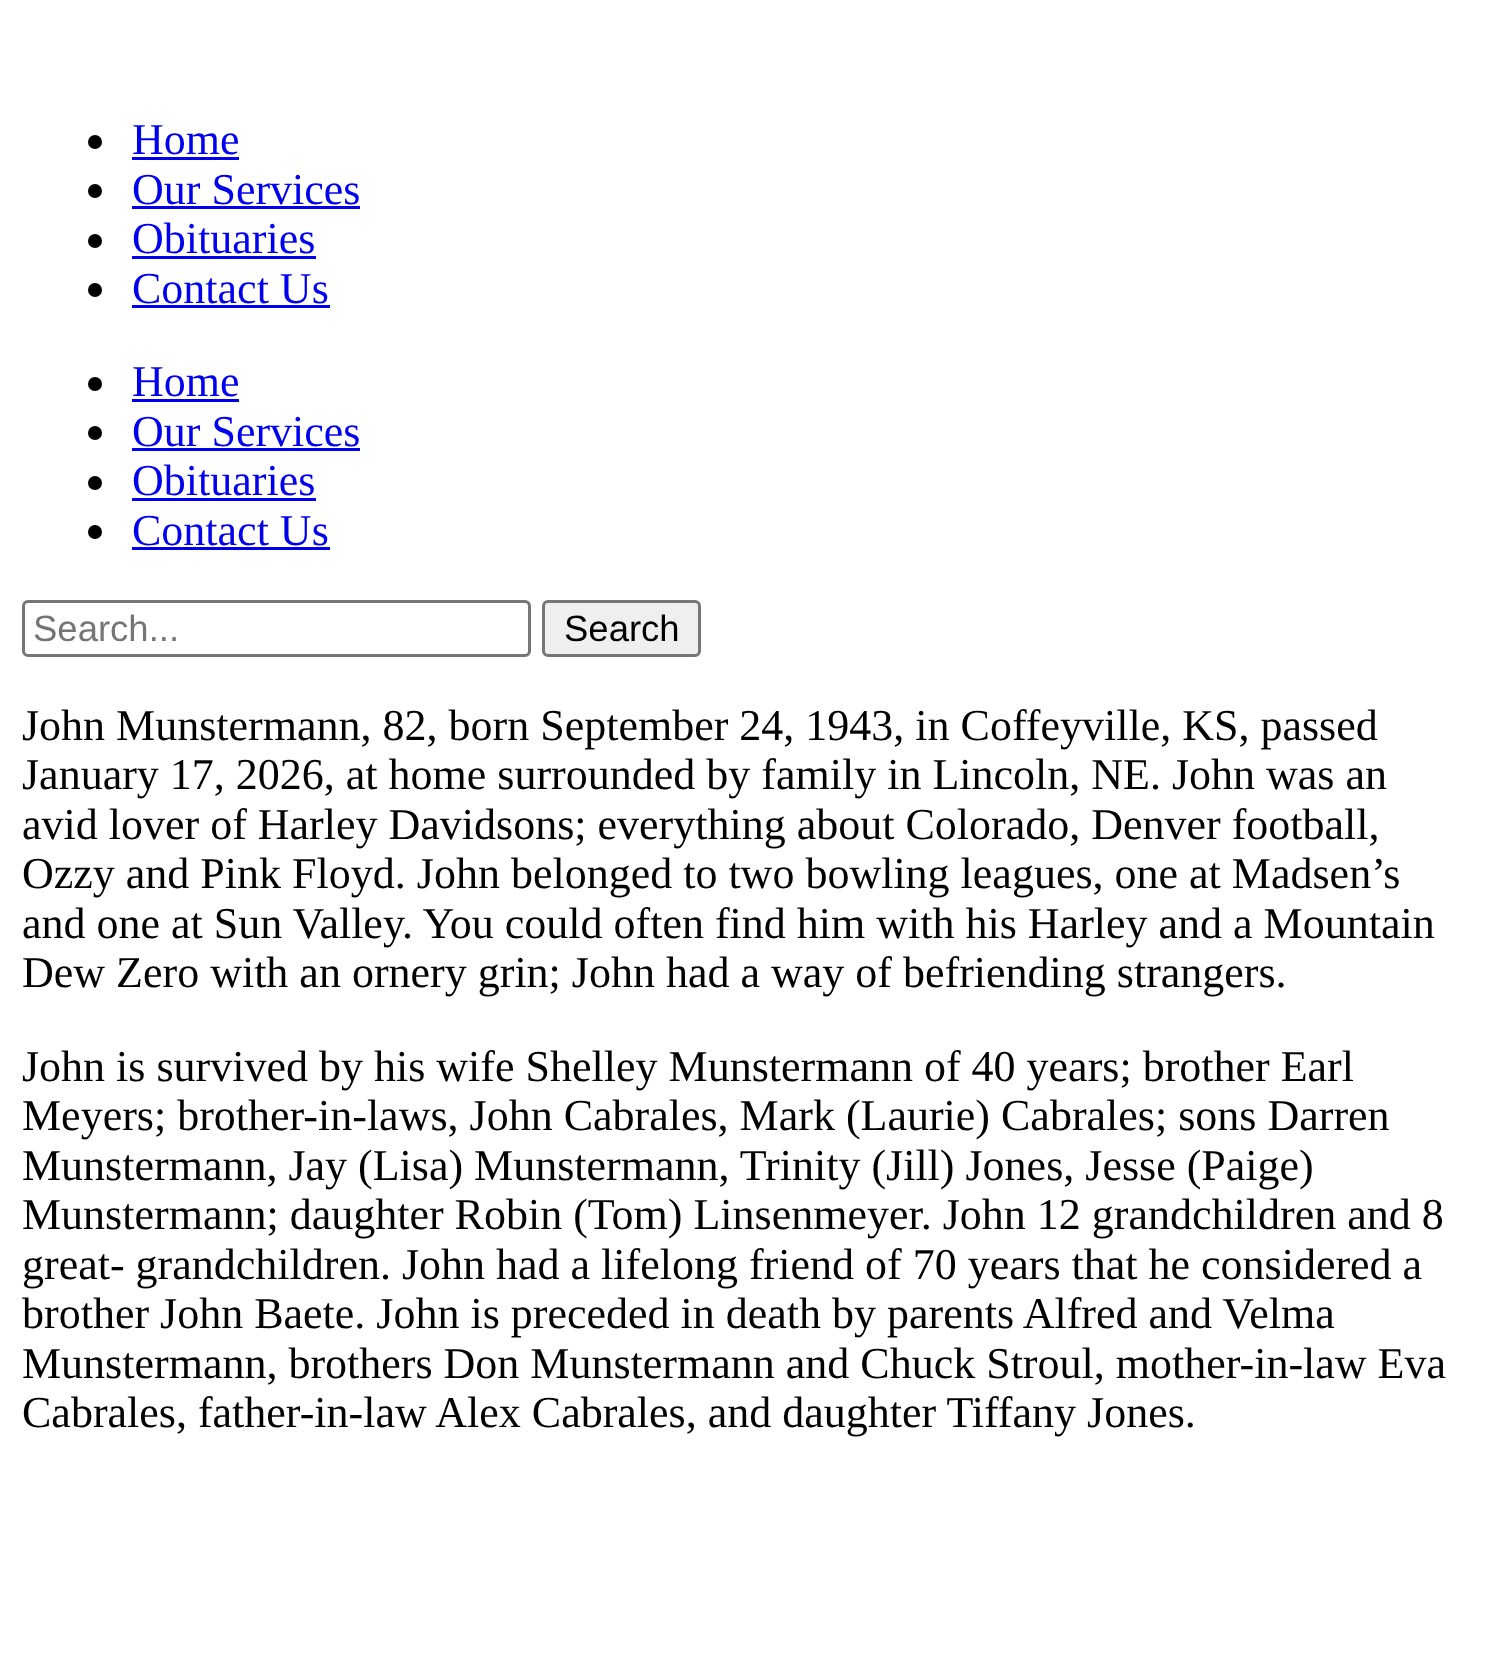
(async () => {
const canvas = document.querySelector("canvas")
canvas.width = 1491
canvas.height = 1668
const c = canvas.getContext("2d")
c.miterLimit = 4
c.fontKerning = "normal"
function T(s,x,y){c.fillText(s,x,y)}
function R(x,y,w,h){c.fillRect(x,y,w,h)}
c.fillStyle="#fff"
R(0,0,1491,1668)
c.fillStyle="#000"
c.beginPath()
c.arc(95,142,7,0,7)
c.fill()
c.font="44px Liberation Serif"
c.fillStyle="#00e"
T("Home",132,154)
R(132,157,107,3)
c.fillStyle="#000"
c.beginPath()
c.arc(95,191,7,0,7)
c.fill()
c.fillStyle="#00e"
T("Our Services",132,204)
R(132,206,228,3)
c.fillStyle="#000"
c.beginPath()
c.arc(95,241,7,0,7)
c.fill()
c.fillStyle="#00e"
T("Obituaries",132,253)
R(132,256,184,3)
c.fillStyle="#000"
c.beginPath()
c.arc(95,290,7,0,7)
c.fill()
c.fillStyle="#00e"
T("Contact Us",132,303)
R(132,305,198,3)
c.fillStyle="#000"
c.beginPath()
c.arc(95,384,7,0,7)
c.fill()
c.fillStyle="#00e"
T("Home",132,396)
R(132,399,107,3)
c.fillStyle="#000"
c.beginPath()
c.arc(95,433,7,0,7)
c.fill()
c.fillStyle="#00e"
T("Our Services",132,446)
R(132,448,228,3)
c.fillStyle="#000"
c.beginPath()
c.arc(95,483,7,0,7)
c.fill()
c.fillStyle="#00e"
T("Obituaries",132,495)
R(132,498,184,3)
c.fillStyle="#000"
c.beginPath()
c.arc(95,532,7,0,7)
c.fill()
c.fillStyle="#00e"
T("Contact Us",132,545)
R(132,547,198,3)
c.beginPath()
c.roundRect(23.5,601.5,506,54,4.5)
c.strokeStyle="#767676"
c.lineWidth=3
c.stroke()
c.font="36.5px Liberation Sans"
c.fillStyle="#757575"
T("Search...",33,641)
c.fillStyle="#efefef"
c.beginPath()
c.roundRect(543.5,601.5,156,54,4.5)
c.fill()
c.stroke()
c.fillStyle="#000"
T("Search",564,641)
c.font="44px Liberation Serif"
T("John Munstermann, 82, born September 24, 1943, in Coffeyville, KS, passed",22,740)
T("January 17, 2026, at home surrounded by family in Lincoln, NE. John was an",22,789)
T("avid lover of Harley Davidsons; everything about Colorado, Denver football,",22,839)
T("Ozzy and Pink Floyd. John belonged to two bowling leagues, one at Madsen’s",22,888)
T("and one at Sun Valley. You could often find him with his Harley and a Mountain",22,938)
T("Dew Zero with an ornery grin; John had a way of befriending strangers.",22,987)
T("John is survived by his wife Shelley Munstermann of 40 years; brother Earl",22,1081)
T("Meyers; brother-in-laws, John Cabrales, Mark (Laurie) Cabrales; sons Darren",22,1130)
T("Munstermann, Jay (Lisa) Munstermann, Trinity (Jill) Jones, Jesse (Paige)",22,1180)
T("Munstermann; daughter Robin (Tom) Linsenmeyer. John 12 grandchildren and 8",22,1229)
T("great- grandchildren. John had a lifelong friend of 70 years that he considered a",22,1279)
T("brother John Baete. John is preceded in death by parents Alfred and Velma",22,1328)
T("Munstermann, brothers Don Munstermann and Chuck Stroul, mother-in-law Eva",22,1378)
T("Cabrales, father-in-law Alex Cabrales, and daughter Tiffany Jones.",22,1427)
})()
